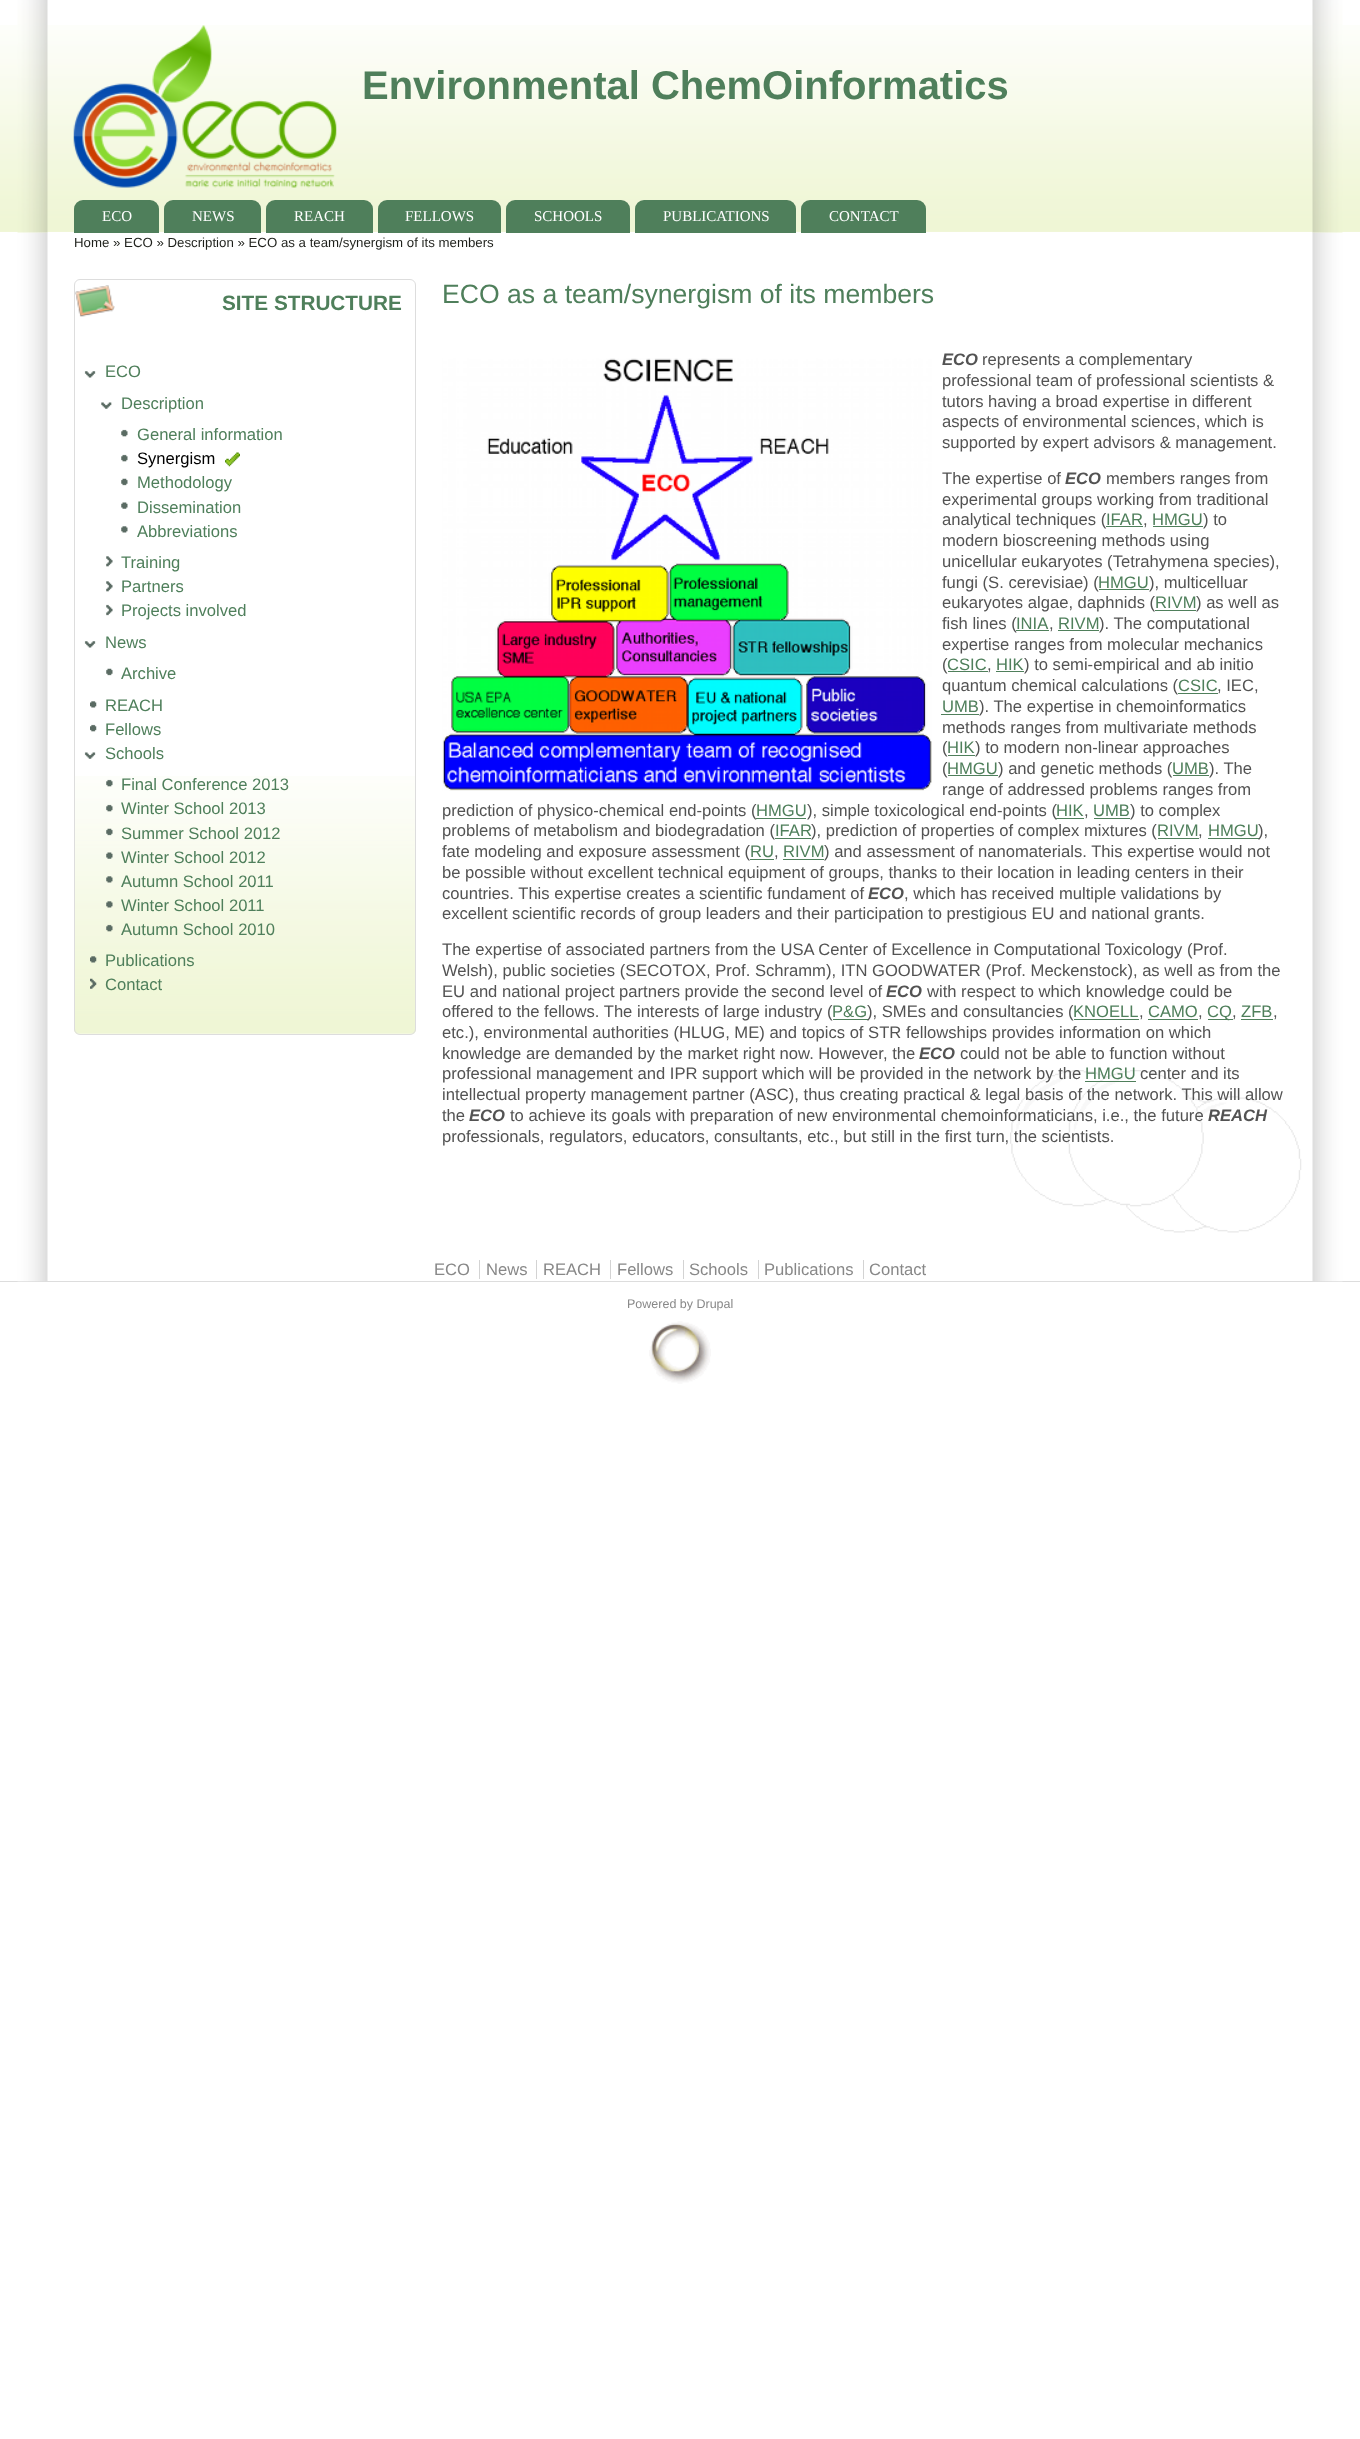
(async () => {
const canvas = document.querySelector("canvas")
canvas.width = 1360
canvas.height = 2439
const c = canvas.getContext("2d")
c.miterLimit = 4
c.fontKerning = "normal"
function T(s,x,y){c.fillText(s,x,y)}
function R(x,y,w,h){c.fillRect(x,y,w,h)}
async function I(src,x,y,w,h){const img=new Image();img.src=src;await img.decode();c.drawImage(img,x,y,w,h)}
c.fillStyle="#fff"
R(0,0,1360,2439)
await I("1.png",0,25,1360,207)
c.fillStyle="#ddd"
R(0,1281,1360,1)
await I("5.png",17,232,31,1050)
await I("2.png",17,0,31,233)
await I("6.png",1312,232,31,1050)
await I("3.png",1312,0,31,233)
await I("4.png",73,25,264,163)
c.font="bold 40px Liberation Sans"
c.fillStyle="#4f7f5b"
T("Environmental ChemOinformatics",362,99)
c.beginPath()
c.roundRect(74,200,85,33,[9,9,0,0])
c.fill()
c.font="15px Liberation Serif"
c.fillStyle="#fff"
T("ECO",102,221)
c.fillStyle="#4f7f5b"
c.beginPath()
c.roundRect(164,200,97,33,[9,9,0,0])
c.fill()
c.fillStyle="#fff"
T("NEWS",192,221)
c.fillStyle="#4f7f5b"
c.beginPath()
c.roundRect(266,200,107,33,[9,9,0,0])
c.fill()
c.fillStyle="#fff"
T("REACH",294,221)
c.fillStyle="#4f7f5b"
c.beginPath()
c.roundRect(378,200,123,33,[9,9,0,0])
c.fill()
c.fillStyle="#fff"
T("FELLOWS",405,221)
c.fillStyle="#4f7f5b"
c.beginPath()
c.roundRect(506,200,124,33,[9,9,0,0])
c.fill()
c.fillStyle="#fff"
T("SCHOOLS",534,221)
c.fillStyle="#4f7f5b"
c.beginPath()
c.roundRect(635,200,161,33,[9,9,0,0])
c.fill()
c.fillStyle="#fff"
T("PUBLICATIONS",663,221)
c.fillStyle="#4f7f5b"
c.beginPath()
c.roundRect(801,200,125,33,[9,9,0,0])
c.fill()
c.fillStyle="#fff"
T("CONTACT",829,221)
c.font="13.25px Liberation Sans"
c.fillStyle="#1e201b"
T("Home » ECO » Description » ECO as a team/synergism of its members",74,247)
await I("7.png",1010,1070,292,163)
await I("8.png",74,776,342,258)
c.beginPath()
c.roundRect(74.5,279.5,341,755,5.5)
c.strokeStyle="#ddd"
c.stroke()
await I("9.png",75,285,40,32)
c.font="bold 20.75px Liberation Sans"
c.fillStyle="#4f7f5b"
T("SITE STRUCTURE",222,310)
await I("10.png",84,371,12,7)
c.font="16.6px Liberation Sans"
T("ECO",105,377)
await I("11.png",101,402,11,7)
T("Description",121,409)
await I("12.png",121,429,7,8)
T("General information",137,440)
await I("12.png",121,454,7,8)
c.fillStyle="#000"
T("Synergism",137,464)
await I("13.png",225,452,15,15)
await I("14.png",121,478,7,8)
c.fillStyle="#4f7f5b"
T("Methodology",137,488)
await I("15.png",121,502,7,7)
T("Dissemination",137,513)
await I("16.png",121,526,7,7)
T("Abbreviations",137,537)
await I("17.png",106,556,7,11)
T("Training",121,568)
await I("17.png",106,581,7,11)
T("Partners",121,592)
await I("18.png",106,604,7,12)
T("Projects involved",121,616)
await I("10.png",84,641,12,7)
T("News",105,648)
await I("14.png",106,668,7,8)
T("Archive",121,679)
await I("19.png",90,701,7,7)
T("REACH",105,711)
await I("20.png",90,724,7,8)
T("Fellows",105,735)
await I("21.png",84,752,12,7)
T("Schools",105,759)
await I("22.png",106,779,7,8)
T("Final Conference 2013",121,790)
await I("23.png",106,804,7,8)
T("Winter School 2013",121,814)
await I("24.png",106,828,7,8)
T("Summer School 2012",121,839)
await I("25.png",106,852,7,7)
T("Winter School 2012",121,863)
await I("26.png",106,876,7,7)
T("Autumn School 2011",121,887)
await I("27.png",106,901,7,7)
T("Winter School 2011",121,911)
await I("28.png",106,924,7,8)
T("Autumn School 2010",121,935)
await I("29.png",90,956,7,7)
T("Publications",105,966)
await I("30.png",90,978,7,11)
T("Contact",105,990)
c.font="26.6px Liberation Sans"
T("ECO as a team/synergism of its members",442,303)
await I("31.png",442,358,490,433)
c.font="italic bold 16.6px Liberation Sans"
c.fillStyle="#535353"
T("ECO",942,365)
c.font="16.6px Liberation Sans"
T("represents a complementary",982,365)
T("professional team of professional scientists &",942,386)
T("tutors having a broad expertise in different",942,407)
T("aspects of environmental sciences, which is",942,427)
T("supported by expert advisors & management.",942,448)
T("The expertise of",942,484)
c.font="italic bold 16.6px Liberation Sans"
T("ECO",1065,484)
c.font="16.6px Liberation Sans"
T("members ranges from",1106,484)
T("experimental groups working from traditional",942,505)
T("analytical techniques (",942,525)
c.fillStyle="#4f7f5b"
T("IFAR",1106,525)
R(1106,526,37,1)
c.fillStyle="#535353"
T(",",1143,525)
c.fillStyle="#4f7f5b"
T("HMGU",1152,525)
R(1153,526,50,1)
c.fillStyle="#535353"
T(") to",1203,525)
T("modern bioscreening methods using",942,546)
T("unicellular eukaryotes (Tetrahymena species),",942,567)
T("fungi (S. cerevisiae) (",942,588)
c.fillStyle="#4f7f5b"
T("HMGU",1098,588)
R(1099,589,50,1)
c.fillStyle="#535353"
T("), multicelluar",1149,588)
T("eukaryotes algae, daphnids (",942,608)
c.fillStyle="#4f7f5b"
T("RIVM",1155,608)
R(1155,610,41,1)
c.fillStyle="#535353"
T(") as well as",1196,608)
T("fish lines (",942,629)
c.fillStyle="#4f7f5b"
T("INIA",1016,629)
R(1016,630,33,1)
c.fillStyle="#535353"
T(",",1049,629)
c.fillStyle="#4f7f5b"
T("RIVM",1058,629)
R(1058,630,41,1)
c.fillStyle="#535353"
T("). The computational",1099,629)
T("expertise ranges from molecular mechanics",942,650)
T("(",942,670)
c.fillStyle="#4f7f5b"
T("CSIC",947,670)
R(948,671,40,1)
c.fillStyle="#535353"
T(",",987,670)
c.fillStyle="#4f7f5b"
T("HIK",996,670)
R(996,671,28,1)
c.fillStyle="#535353"
T(") to semi-empirical and ab initio",1024,670)
T("quantum chemical calculations (",942,691)
c.fillStyle="#4f7f5b"
T("CSIC",1178,691)
R(1178,693,40,1)
c.fillStyle="#535353"
T(", IEC,",1217,691)
c.fillStyle="#4f7f5b"
T("UMB",942,712)
R(941,714,38,1)
c.fillStyle="#535353"
T("). The expertise in chemoinformatics",979,712)
T("methods ranges from multivariate methods",942,733)
T("(",942,753)
c.fillStyle="#4f7f5b"
T("HIK",947,753)
R(948,755,27,1)
c.fillStyle="#535353"
T(") to modern non-linear approaches",975,753)
T("(",942,774)
c.fillStyle="#4f7f5b"
T("HMGU",947,774)
R(948,775,50,1)
c.fillStyle="#535353"
T(") and genetic methods (",998,774)
c.fillStyle="#4f7f5b"
T("UMB",1172,774)
R(1173,775,36,1)
c.fillStyle="#535353"
T("). The",1209,774)
T("range of addressed problems ranges from",942,795)
T("prediction of physico-chemical end-points (",442,816)
c.fillStyle="#4f7f5b"
T("HMGU",756,816)
R(756,818,50,1)
c.fillStyle="#535353"
T("), simple toxicological end-points (",807,816)
c.fillStyle="#4f7f5b"
T("HIK",1056,816)
R(1056,818,28,1)
c.fillStyle="#535353"
T(",",1084,816)
c.fillStyle="#4f7f5b"
T("UMB",1093,816)
R(1094,818,36,1)
c.fillStyle="#535353"
T(") to complex",1130,816)
T("problems of metabolism and biodegradation (",442,836)
c.fillStyle="#4f7f5b"
T("IFAR",775,836)
R(775,838,36,1)
c.fillStyle="#535353"
T("), prediction of properties of complex mixtures (",811,836)
c.fillStyle="#4f7f5b"
T("RIVM",1157,836)
R(1158,838,41,1)
c.fillStyle="#535353"
T(",",1198,836)
c.fillStyle="#4f7f5b"
T("HMGU",1208,836)
R(1208,838,51,1)
c.fillStyle="#535353"
T("),",1258,836)
T("fate modeling and exposure assessment (",442,857)
c.fillStyle="#4f7f5b"
T("RU",750,857)
R(750,859,24,1)
c.fillStyle="#535353"
T(",",774,857)
c.fillStyle="#4f7f5b"
T("RIVM",783,857)
R(783,859,41,1)
c.fillStyle="#535353"
T(") and assessment of nanomaterials. This expertise would not",824,857)
T("be possible without excellent technical equipment of groups, thanks to their location in leading centers in their",442,878)
T("countries. This expertise creates a scientific fundament of",442,899)
c.font="italic bold 16.6px Liberation Sans"
T("ECO",868,899)
c.font="16.6px Liberation Sans"
T(", which has received multiple validations by",904,899)
T("excellent scientific records of group leaders and their participation to prestigious EU and national grants.",442,919)
T("The expertise of associated partners from the USA Center of Excellence in Computational Toxicology (Prof.",442,955)
T("Welsh), public societies (SECOTOX, Prof. Schramm), ITN GOODWATER (Prof. Meckenstock), as well as from the",442,976)
T("EU and national project partners provide the second level of",442,997)
c.font="italic bold 16.6px Liberation Sans"
T("ECO",886,997)
c.font="16.6px Liberation Sans"
T("with respect to which knowledge could be",927,997)
T("offered to the fellows. The interests of large industry (",442,1017)
c.fillStyle="#4f7f5b"
T("P&G",832,1017)
R(833,1019,35,1)
c.fillStyle="#535353"
T("), SMEs and consultancies (",867,1017)
c.fillStyle="#4f7f5b"
T("KNOELL",1073,1017)
R(1074,1019,65,1)
T("CAMO",1148,1017)
R(1148,1019,50,1)
R(1208,1019,25,1)
T("CQ",1207,1017)
T("ZFB",1241,1017)
R(1241,1019,32,1)
c.fillStyle="#535353"
T(",",1139,1017)
T(",",1198,1017)
T(",",1232,1017)
T(",",1273,1017)
T("etc.), environmental authorities (HLUG, ME) and topics of STR fellowships provides information on which",442,1038)
T("knowledge are demanded by the market right now. However, the",442,1059)
c.font="italic bold 16.6px Liberation Sans"
T("ECO",919,1059)
c.font="16.6px Liberation Sans"
T("could not be able to function without",960,1059)
T("professional management and IPR support which will be provided in the network by the",442,1079)
c.fillStyle="#4f7f5b"
T("HMGU",1085,1079)
R(1085,1081,51,1)
c.fillStyle="#535353"
T("center and its",1140,1079)
T("intellectual property management partner (ASC), thus creating practical & legal basis of the network. This will allow",442,1100)
T("the",442,1121)
c.font="italic bold 16.6px Liberation Sans"
T("ECO",469,1121)
c.font="16.6px Liberation Sans"
T("to achieve its goals with preparation of new environmental chemoinformaticians, i.e., the future",510,1121)
c.font="italic bold 16.6px Liberation Sans"
T("REACH",1208,1121)
c.font="16.6px Liberation Sans"
T("professionals, regulators, educators, consultants, etc., but still in the first turn, the scientists.",442,1142)
c.fillStyle="#888"
T("ECO",434,1275)
T("News",486,1275)
c.fillStyle="#d3d3d3"
R(479,1260,1,19)
c.fillStyle="#888"
T("REACH",543,1275)
c.fillStyle="#d3d3d3"
R(536,1260,1,19)
c.fillStyle="#888"
T("Fellows",617,1275)
c.fillStyle="#d3d3d3"
R(610,1260,1,19)
c.fillStyle="#888"
T("Schools",689,1275)
c.fillStyle="#d3d3d3"
R(683,1260,1,19)
c.fillStyle="#888"
T("Publications",764,1275)
c.fillStyle="#d3d3d3"
R(758,1260,1,19)
c.fillStyle="#888"
T("Contact",869,1275)
c.fillStyle="#d3d3d3"
R(863,1260,1,19)
c.font="12.5px Liberation Sans"
c.fillStyle="#888"
T("Powered by Drupal",627,1308)
await I("32.png",649,1321,62,63)
})()
